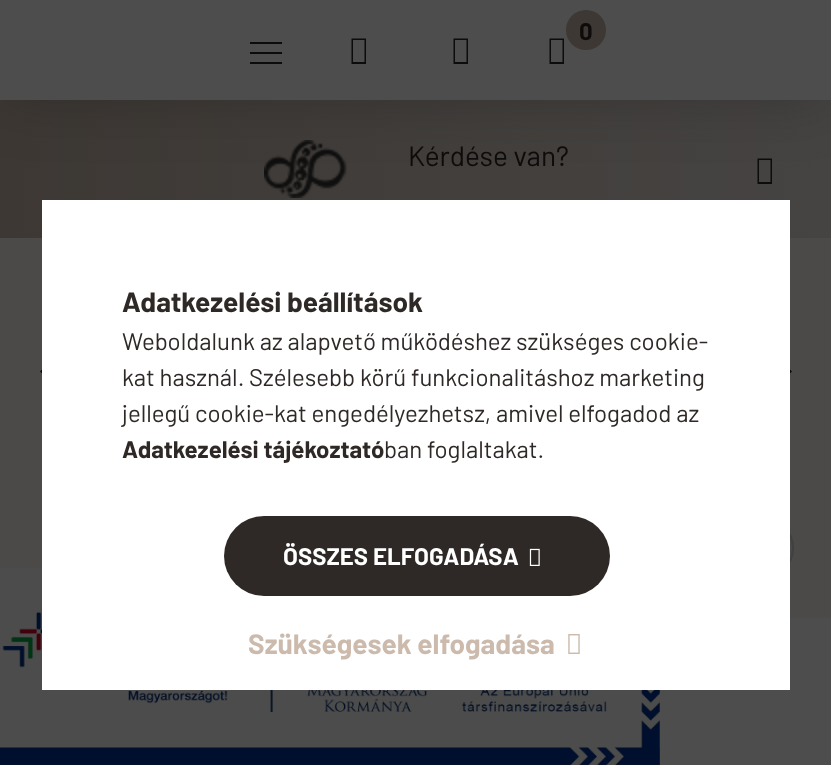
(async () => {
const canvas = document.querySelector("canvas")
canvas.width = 831
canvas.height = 765
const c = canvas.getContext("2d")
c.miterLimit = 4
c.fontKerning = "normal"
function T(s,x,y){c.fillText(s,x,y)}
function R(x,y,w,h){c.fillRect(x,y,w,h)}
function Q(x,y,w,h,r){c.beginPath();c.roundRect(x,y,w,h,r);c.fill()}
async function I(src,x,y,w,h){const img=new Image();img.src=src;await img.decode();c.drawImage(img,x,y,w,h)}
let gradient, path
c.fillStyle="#4b4a49"
R(0,0,831,765)
gradient = c.createLinearGradient(0,383,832,383)
gradient.addColorStop(0,"#3d3834")
gradient.addColorStop(1,"#464443")
c.fillStyle = gradient
R(0,100,831,138)
await I("1.png",264,140,83,58)
c.fillStyle="#0e0c0b"
path = new Path2D("M757.5 184v-25.5h14.5v25.5zm1.5-2h11.5v-22h-11.5z")
c.fill(path)
c.fillStyle="#00000033"
c.filter="blur(30px)"
c.beginPath()
c.rect(0,0,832,100)
c.fill()
c.filter="none"
c.fillStyle="#4d4d4d"
R(0,0,831,100)
c.fillStyle="#3d3834"
c.beginPath()
c.arc(586,30,20,0,7)
c.fill()
c.font="bold 24px Barlow"
c.fillStyle="#0e0c0b"
T("0",579,40)
path = new Path2D("M549.5 64v-25.5h14.5v25.5zm1.5-2h11.5v-22h-11.5z")
c.fill(path)
R(250,42,32,2)
R(250,52,32,2)
R(250,62,32,2)
path = new Path2D("M351.5 64v-25.5h14.5v25.5zm1.5-2h11.5v-22h-11.5z")
c.fill(path)
path = new Path2D("M453.5 64v-25.5h14.5v25.5zm1.5-2h11.5v-22h-11.5z")
c.fill(path)
c.font="28px Barlow"
T("Kérdése van?",408,166)
path = new Path2D("M43 368.5l8.5 8.5l-3 3l-8.5-8.5z")
c.fill(path)
path = new Path2D("M783.5 363l8.5 8.5l-3 3l-8.5-8.5z")
c.fill(path)
c.beginPath()
c.arc(764,548,29,0,7)
c.strokeStyle="#404040"
c.lineWidth=2
c.stroke()
c.fillStyle="#4d4d4d"
R(660,618,171,147)
await I("4.png",0,568,660,197)
c.fillStyle="#fff"
R(42,200,748,490)
c.font="bold 28px Barlow"
c.fillStyle="#2e2926"
T("Adatkezelési beállítások",122,312)
c.font="24px Barlow"
T("Weboldalunk az alapvető működéshez szükséges cookie-",122,350)
T("kat használ. Szélesebb körű funkcionalitáshoz marketing",122,386)
T("jellegű cookie-kat engedélyezhetsz, amivel elfogadod az",122,422)
c.font="bold 24px Barlow"
T("Adatkezelési tájékoztató",122,458)
c.font="24px Barlow"
T("ban foglaltakat.",384,458)
gradient = c.createLinearGradient(224,556,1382,556)
gradient.addColorStop(.33,"#2e2926")
gradient.addColorStop(.67,"#ccbbad")
c.fillStyle = gradient
Q(224,516,386,80,40)
c.font="bold 24px Barlow"
c.fillStyle="#fff"
T("ÖSSZES ELFOGADÁSA",283,565)
await I("2.png",529,548,11,18)
c.font="bold 28px Barlow"
c.fillStyle="#ccbbad"
T("Szükségesek elfogadása",248,654)
await I("3.png",568,634,12,20)
})()
